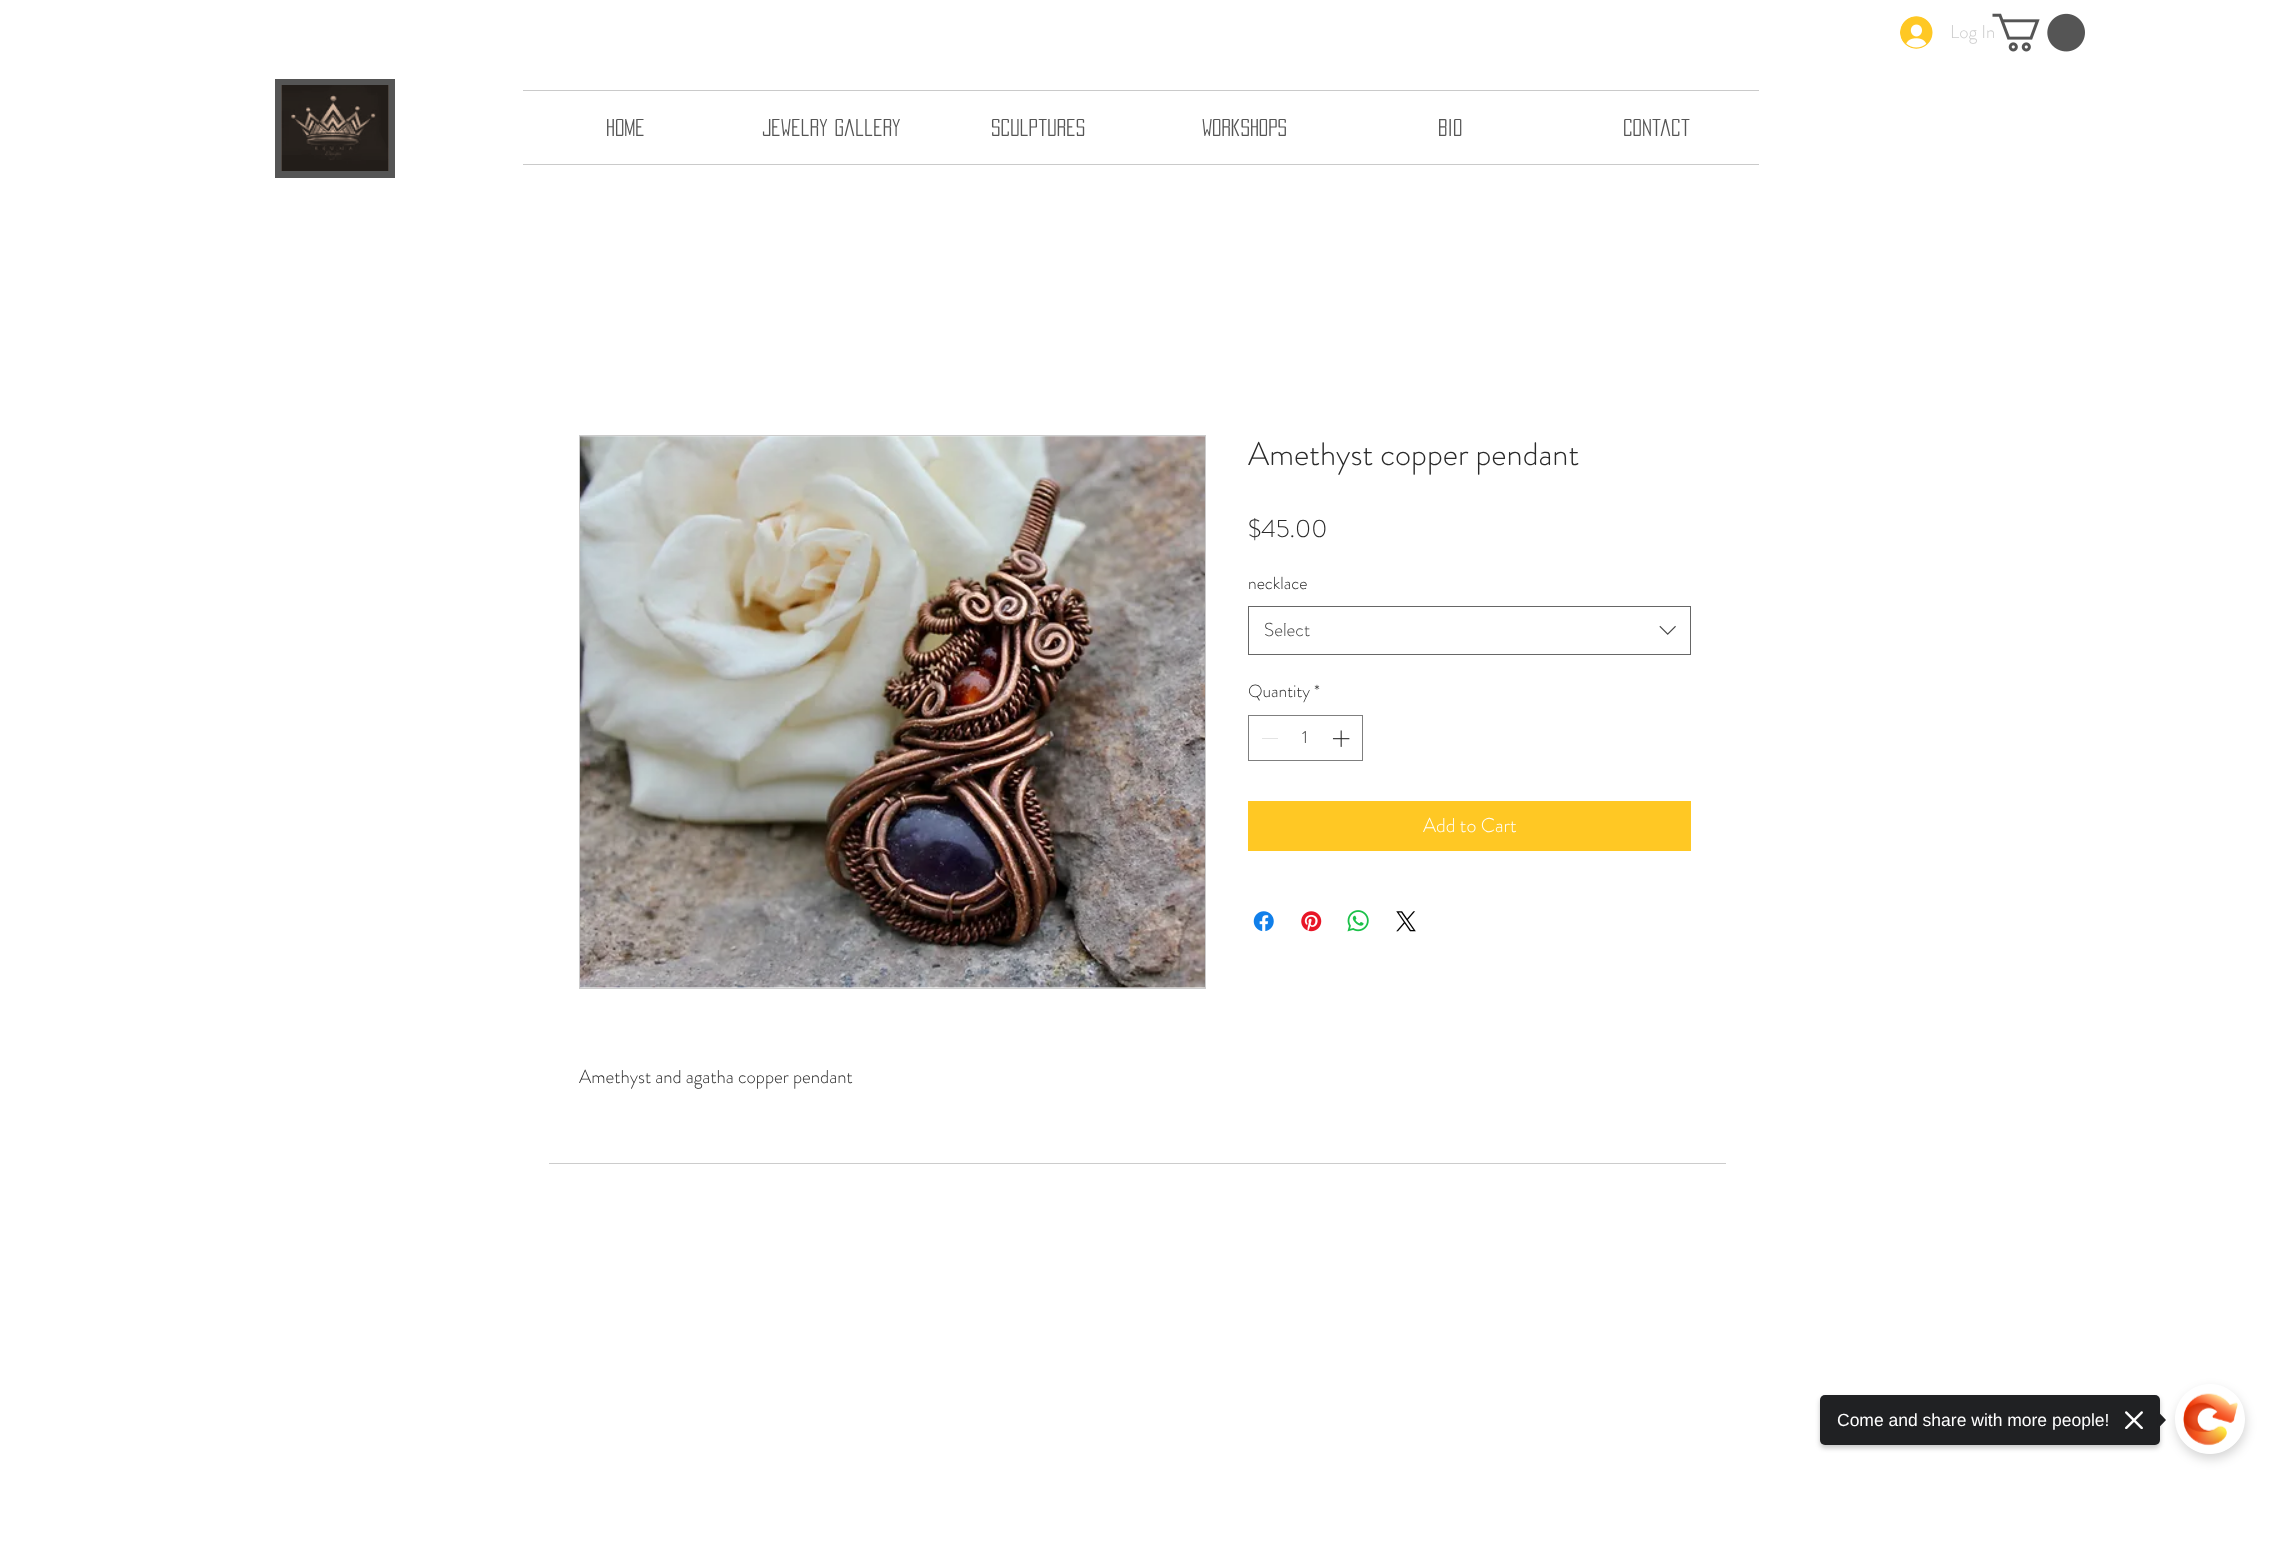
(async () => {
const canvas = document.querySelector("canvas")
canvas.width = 2270
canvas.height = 1568
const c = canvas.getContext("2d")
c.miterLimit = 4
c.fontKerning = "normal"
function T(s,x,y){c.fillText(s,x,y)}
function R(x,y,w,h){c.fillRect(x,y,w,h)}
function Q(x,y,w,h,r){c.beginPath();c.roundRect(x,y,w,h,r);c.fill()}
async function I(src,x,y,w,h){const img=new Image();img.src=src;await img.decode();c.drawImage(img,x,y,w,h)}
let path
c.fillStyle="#fff"
R(0,0,2270,1568)
await I("1.png",1900,16,33,33)
c.font="300 18.75px 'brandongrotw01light'"
c.fillStyle="#ccc"
T("Log In",1950,38)
await I("2.png",1992,13,93,39)
c.fillStyle="#555"
R(275,79,120,99)
await I("3.png",281,85,108,86)
c.fillStyle="#cacaca"
R(523,90,1236,1)
R(523,164,1236,1)
c.font="21.25px 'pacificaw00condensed'"
c.fillStyle="#555"
T("Home",606,136)
T("Jewelry Gallery",762,136)
T("Sculptures",991,136)
T("Workshops",1202,136)
T("Bio",1438,136)
T("Contact",1623,136)
c.font="300 32.5px 'brandongrotw01light'"
c.fillStyle="#2a2a2a"
T("Amethyst copper pendant",1248,465)
c.font="300 25px 'brandongrotw01light'"
T("$45.00",1248,537)
c.font="300 17.5px 'brandongrotw01light'"
T("necklace",1248,589)
c.strokeStyle="#666"
c.strokeRect(1248.5,606.5,442,48)
c.font="300 18.75px 'brandongrotw01light'"
c.fillStyle="#444"
T("Select",1264,636)
await I("4.png",1659,625,17,10)
c.font="300 17.5px 'brandongrotw01light'"
c.fillStyle="#2a2a2a"
T("Quantity",1248,697)
T("*",1314,697)
c.strokeStyle="#7f7f7f"
c.strokeRect(1248.5,715.5,114,45)
c.fillStyle="#e3e3e3"
R(1262,738,16,1)
c.fillStyle="#2a2a2a"
T("1",1302,743)
await I("5.png",1332,730,18,17)
c.fillStyle="#ffc824"
R(1248,801,443,50)
c.font="300 20px 'brandongrotw01light'"
c.fillStyle="#fff"
T("Add to Cart",1423,832)
await I("6.png",1253,911,21,21)
await I("7.png",1301,911,21,21)
await I("8.png",1347,910,22,22)
await I("9.png",1396,911,20,21)
c.strokeStyle="#ccc"
c.strokeRect(579.5,435.5,626,553)
await I("10.png",580,436,625,552)
c.font="300 18.75px 'brandongrotw01light'"
c.fillStyle="#2a2a2a"
T("Amethyst and agatha copper pendant",579,1083)
c.fillStyle="#ccc"
R(549,1163,1177,1)
c.save()
path = new Path2D("M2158 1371h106v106h-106zm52 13c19.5 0 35 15.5 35 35c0 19.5-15.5 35-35 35c-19.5 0-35-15.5-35-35c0-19.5 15.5-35 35-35z")
c.clip(path,"evenodd")
c.fillStyle="#0000002b"
c.filter="blur(5.5px)"
c.beginPath()
c.roundRect(2176,1389,70,70,35)
c.fill()
c.filter="none"
c.restore()
c.fillStyle="#00000038"
c.filter="blur(2.5px)"
c.beginPath()
c.roundRect(1820,1398,340,50,5)
c.fill()
c.filter="none"
c.fillStyle="#202123"
Q(1820,1395,340,50,5)
c.font="17.5px Liberation Sans"
c.fillStyle="#fff"
T("Come and share with more people!",1837,1426)
await I("11.png",2125,1411,18,18)
c.fillStyle="#202123"
path = new Path2D("M2157.5 1429v-18l8.5 9z")
c.fill(path)
await I("12.png",2180,1393,63,61)
})()
